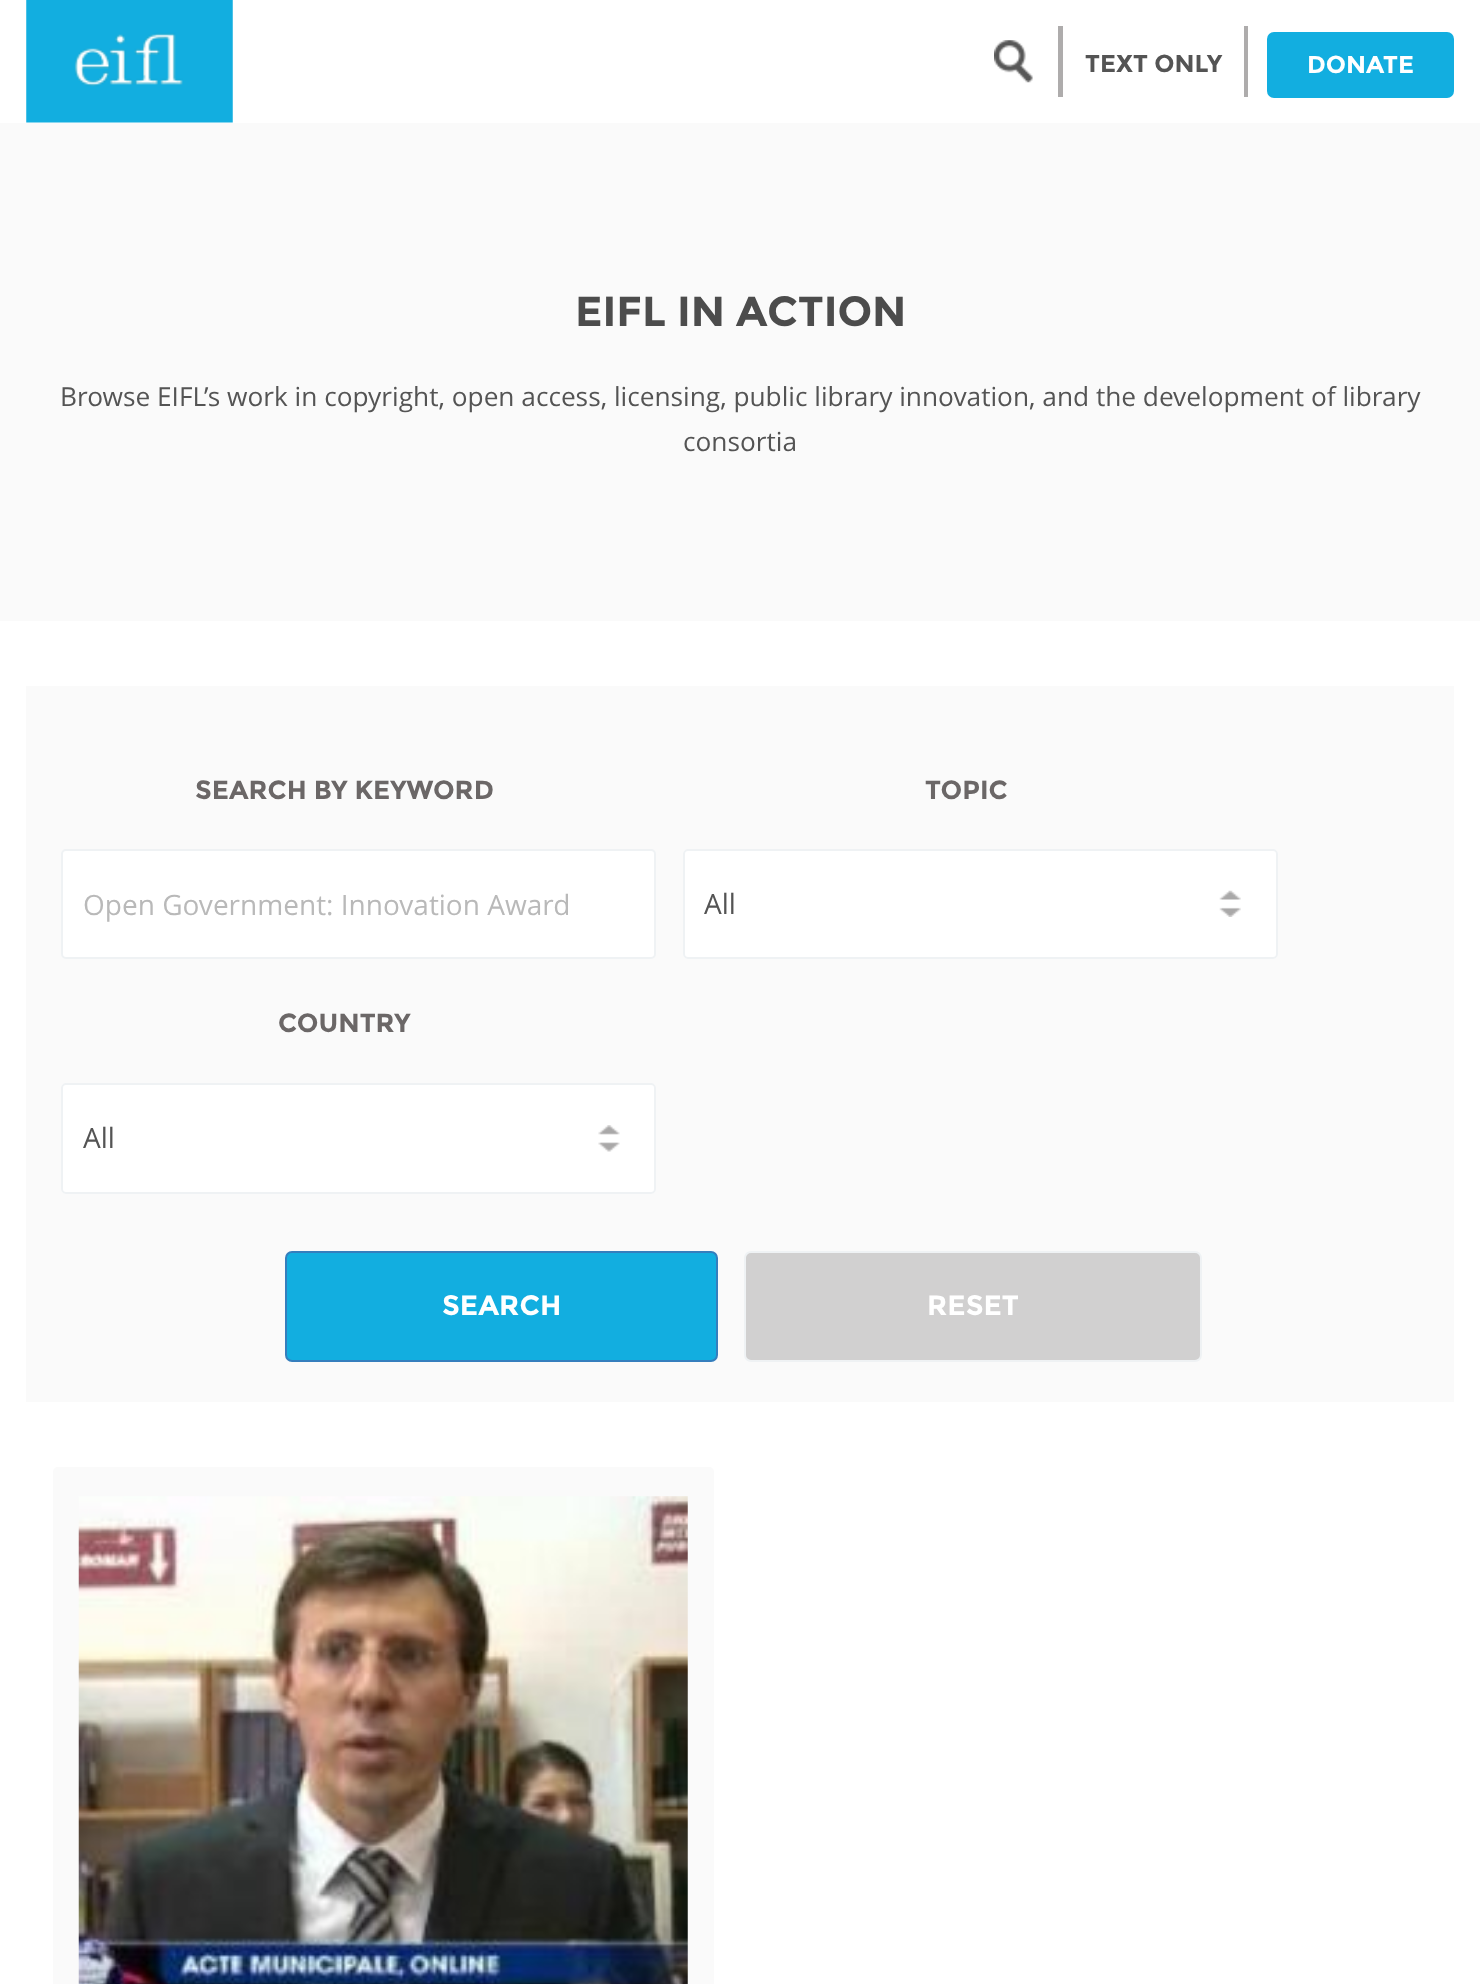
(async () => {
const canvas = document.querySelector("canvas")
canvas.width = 1480
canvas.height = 1984
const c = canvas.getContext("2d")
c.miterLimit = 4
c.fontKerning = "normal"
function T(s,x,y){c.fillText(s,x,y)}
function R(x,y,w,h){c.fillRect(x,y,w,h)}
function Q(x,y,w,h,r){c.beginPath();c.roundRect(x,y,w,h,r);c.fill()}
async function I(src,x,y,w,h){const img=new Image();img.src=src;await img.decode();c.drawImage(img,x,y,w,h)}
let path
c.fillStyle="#fff"
R(0,0,1480,1984)
await I("1.png",26,0,207,123)
await I("2.png",994,40,39,43)
c.fillStyle="#aeacac"
R(1058,26,5,71)
c.font="bold 24.5px Montserrat"
c.fillStyle="#545454"
T("TEXT ONLY",1085,72)
c.fillStyle="#aeacac"
R(1244,26,4,71)
c.fillStyle="#12aee0"
Q(1267,32,187,66,7)
c.fillStyle="#fff"
T("DONATE",1307,73)
c.fillStyle="#fafafa"
R(0,123,1480,498)
c.font="bold 42px Montserrat"
c.fillStyle="#4c4c4c"
T("EIFL IN ACTION",575,326)
c.font="26.25px Open Sans"
c.fillStyle="#545454"
T("Browse EIFL’s work in copyright, open access, licensing, public library innovation, and the development of library",60,406)
T("consortia",683,451)
c.fillStyle="#fafafa"
R(26,686,1428,716)
c.font="bold 26.25px Montserrat"
c.fillStyle="#6b6767"
T("SEARCH BY KEYWORD",195,799)
c.fillStyle="#fff"
c.beginPath()
c.roundRect(62,850,593,108,4)
c.fill()
c.strokeStyle="#eff2f4"
c.lineWidth=2
c.stroke()
c.font="28px Open Sans"
c.fillStyle="#b9b9b9"
T("Open Government: Innovation Award",83,915)
c.font="bold 26.25px Montserrat"
c.fillStyle="#6b6767"
T("TOPIC",925,799)
c.fillStyle="#fff"
Q(683,849,595,110,5)
await I("3.png",1219,890,22,27)
c.beginPath()
c.roundRect(684,850,593,108,4)
c.stroke()
c.font="28px Open Sans"
c.fillStyle="#545454"
T("All",704,914)
c.font="bold 26.25px Montserrat"
c.fillStyle="#6b6767"
T("COUNTRY",278,1032)
c.fillStyle="#fff"
Q(61,1083,595,111,5)
await I("4.png",598,1125,22,27)
c.beginPath()
c.roundRect(62,1084,593,109,4)
c.stroke()
c.font="28px Open Sans"
c.fillStyle="#545454"
T("All",83,1148)
c.fillStyle="#12aee0"
c.beginPath()
c.roundRect(286,1252,431,109,6)
c.fill()
c.strokeStyle="#357ebd"
c.stroke()
c.font="bold 28px Montserrat"
c.fillStyle="#fff"
T("SEARCH",442,1315)
c.fillStyle="#d1d0d0"
c.beginPath()
c.roundRect(745,1252,456,109,6)
c.fill()
c.strokeStyle="#eff2f4"
c.stroke()
c.fillStyle="#fff"
T("RESET",927,1315)
c.fillStyle="#fafafa"
path = new Path2D("M58 1467h651c3 0 5 2 5 5v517h-661v-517c0-3 2-5 5-5z")
c.fill(path)
await I("5.png",78,1496,610,488)
})()
